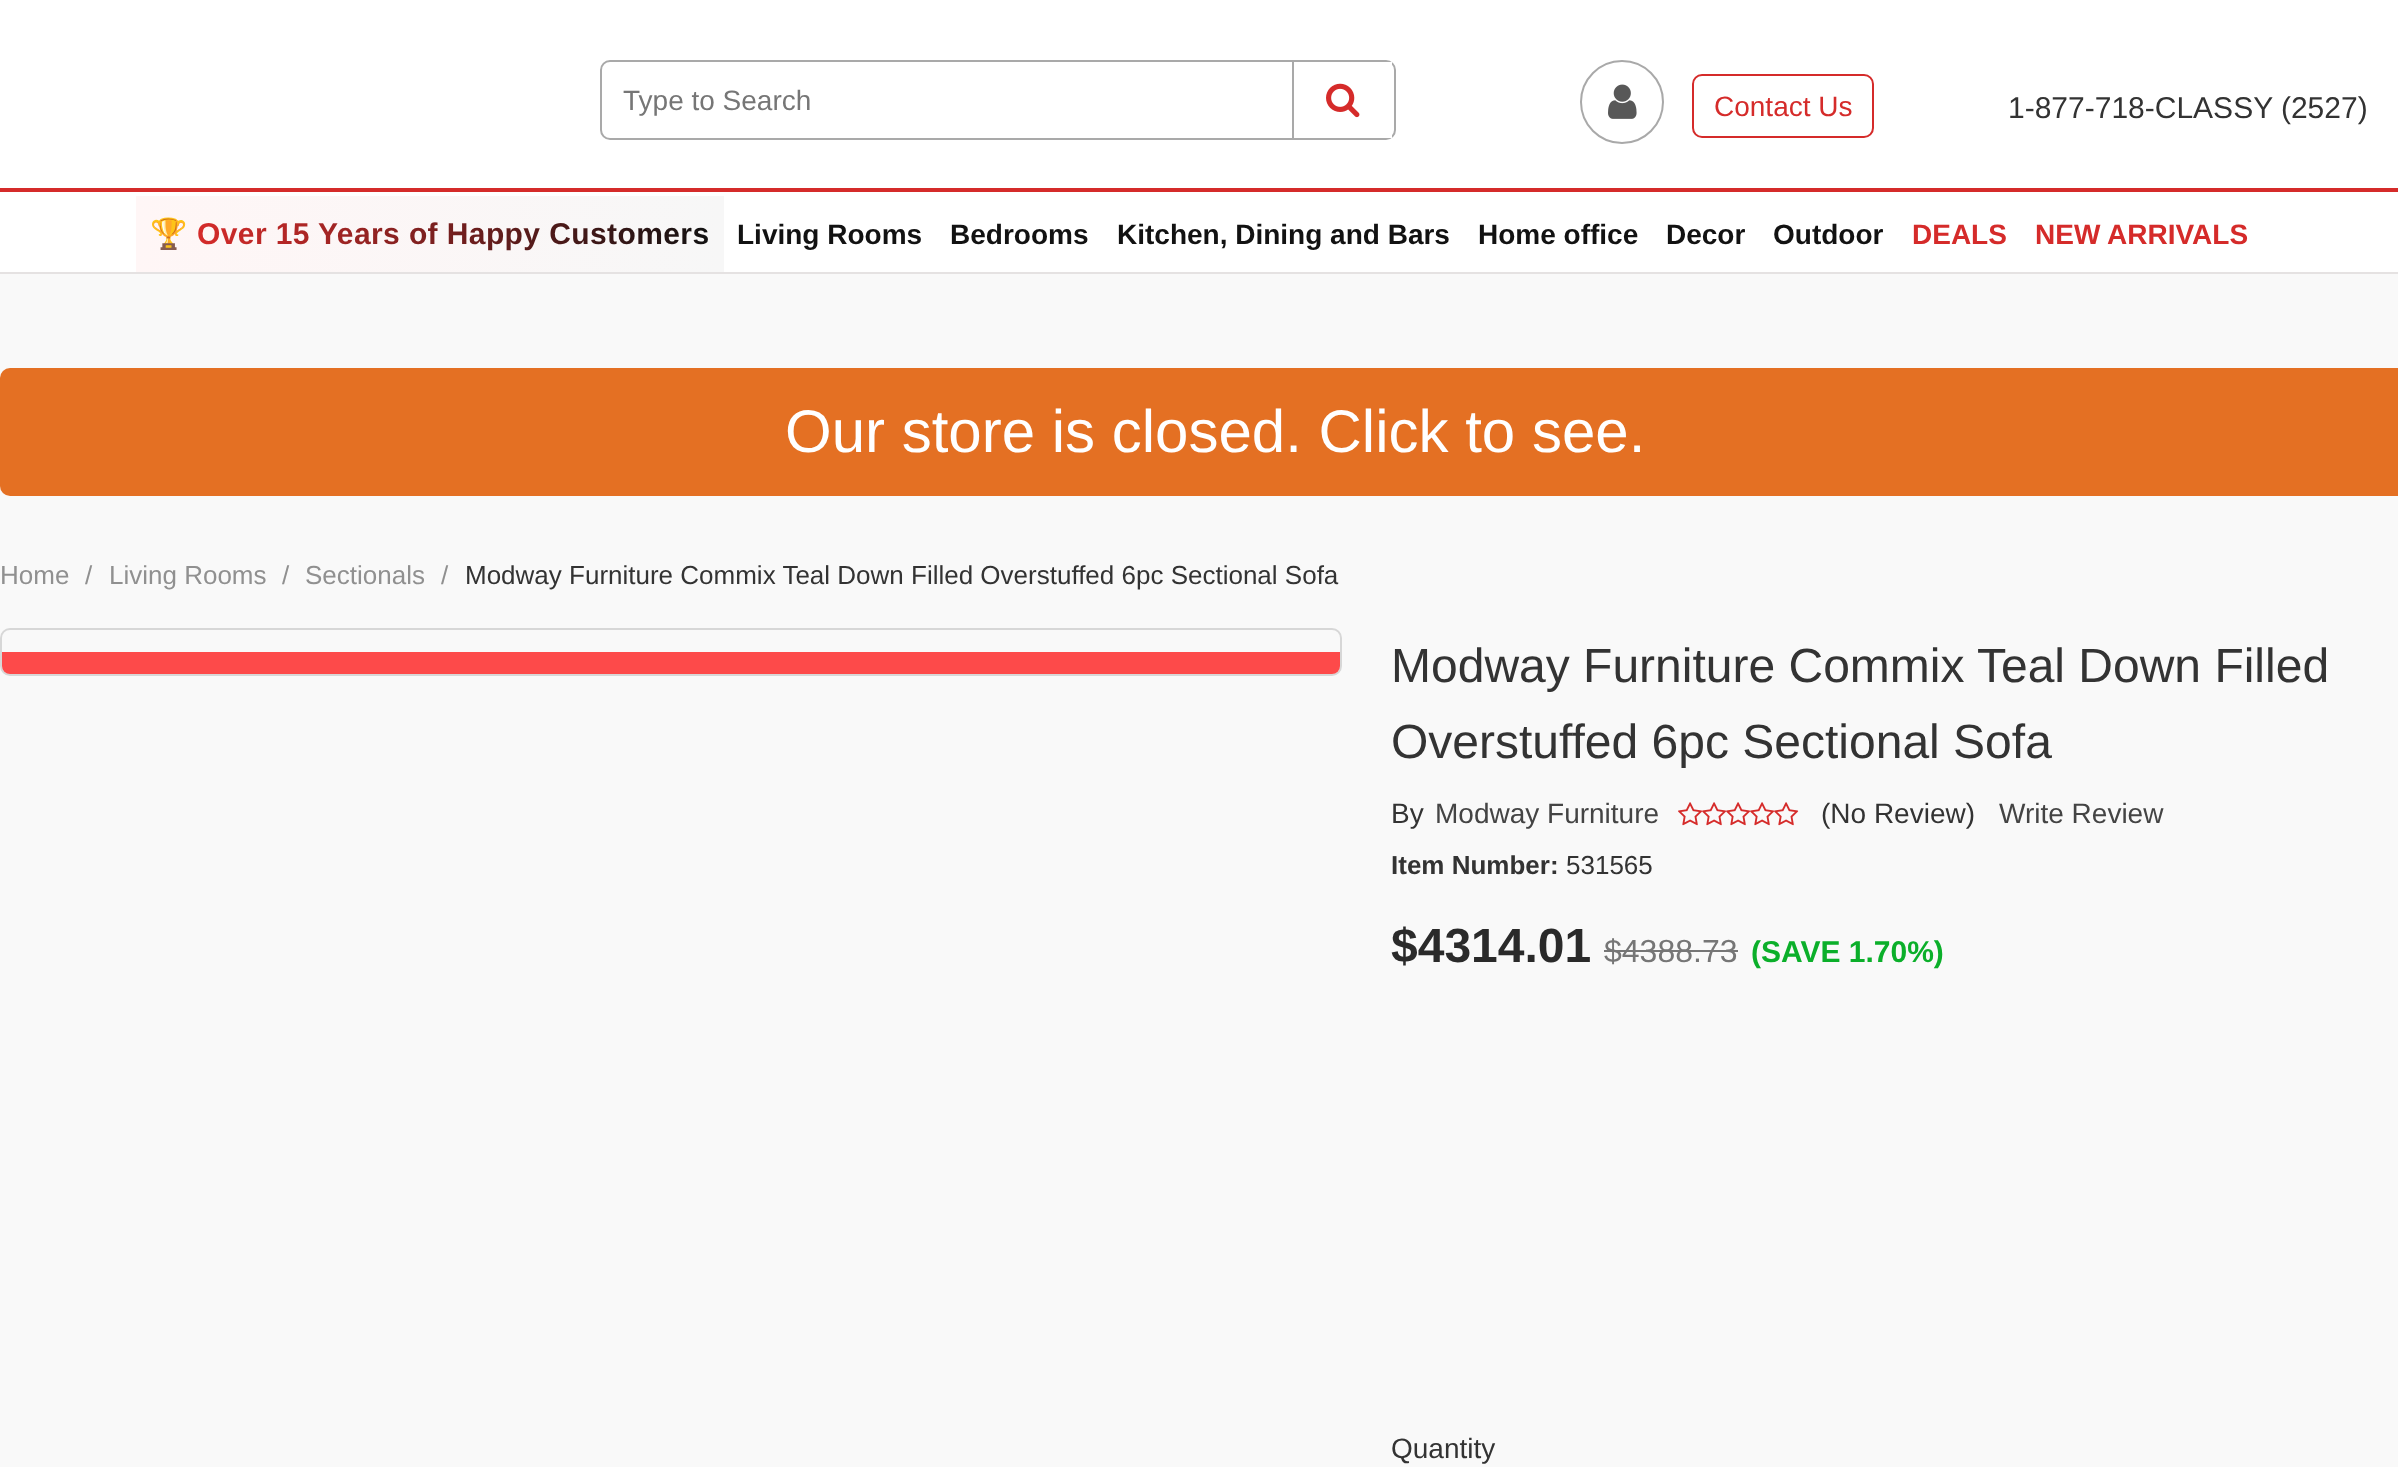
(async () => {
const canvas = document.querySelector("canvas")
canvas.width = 2398
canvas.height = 1467
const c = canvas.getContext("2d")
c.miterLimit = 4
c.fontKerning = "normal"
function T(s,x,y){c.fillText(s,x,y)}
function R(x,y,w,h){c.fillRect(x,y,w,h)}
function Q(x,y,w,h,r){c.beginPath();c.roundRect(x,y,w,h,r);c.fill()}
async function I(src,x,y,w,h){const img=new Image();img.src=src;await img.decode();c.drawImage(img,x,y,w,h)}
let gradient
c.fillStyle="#f9f9f9"
R(0,0,2398,1467)
c.fillStyle="#fff"
R(0,0,2398,272)
c.fillStyle="#d52b2a"
R(0,188,2398,4)
c.beginPath()
c.roundRect(601,61,794,78,9)
c.strokeStyle="#a9a9a9"
c.lineWidth=2
c.stroke()
c.font="28px Liberation Sans"
c.fillStyle="#767676"
T("Type to Search",623,110)
c.fillStyle="#fff"
R(1386,62,6,76)
c.fillStyle="#a9a9a9"
R(1292,62,2,76)
await I("1.png",1326,83,34,35)
c.beginPath()
c.arc(1622,102,41,0,7)
c.stroke()
await I("2.png",1608,84,29,35)
c.beginPath()
c.roundRect(1693,75,180,62,9)
c.strokeStyle="#d52b2a"
c.stroke()
c.fillStyle="#d52b2a"
T("Contact Us",1714,116)
c.font="30px Liberation Sans"
c.fillStyle="#333"
T("1-877-718-CLASSY (2527)",2008,118)
c.fillStyle="#e5e2e2"
R(0,272,2398,2)
gradient = c.createLinearGradient(136,234,724,234)
gradient.addColorStop(0,"#fff6f6")
gradient.addColorStop(1,"#f7f7f7")
c.fillStyle = gradient
R(136,196,588,76)
c.letterSpacing="0.4px"
c.font="bold 30px Noto Color Emoji"
c.fillStyle="#121212"
T("🏆",150,244)
c.font="bold 30px Liberation Sans"
gradient = c.createLinearGradient(197,233,709,233)
gradient.addColorStop(0,"#d52b2a")
gradient.addColorStop(1,"#121212")
c.fillStyle = gradient
T("Over 15 Years of Happy Customers",197,244)
c.letterSpacing="0px"
c.font="bold 28px Liberation Sans"
c.fillStyle="#121212"
T("Living Rooms",737,244)
T("Bedrooms",950,244)
T("Kitchen, Dining and Bars",1117,244)
T("Home office",1478,244)
T("Decor",1666,244)
T("Outdoor",1773,244)
c.fillStyle="#d52b2a"
T("DEALS",1912,244)
T("NEW ARRIVALS",2035,244)
c.fillStyle="#e47023"
Q(0,368,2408,128,10)
c.font="60px Liberation Sans"
c.fillStyle="#fff"
T("Our store is closed. Click to see.",785,452)
c.font="26px Liberation Sans"
c.fillStyle="#909090"
T("Home",0,584)
T("/",85,584)
T("Living Rooms",109,584)
T("/",282,584)
T("Sectionals",305,584)
T("/",441,584)
c.fillStyle="#333"
T("Modway Furniture Commix Teal Down Filled Overstuffed 6pc Sectional Sofa",465,584)
c.beginPath()
c.roundRect(1,629,1340,46,9)
c.strokeStyle="#d7d7d7"
c.stroke()
c.fillStyle="#ff0000b3"
c.beginPath()
c.roundRect(2,652,1338,22,[0,0,8,8])
c.fill()
c.font="48px Liberation Sans"
c.fillStyle="#333"
T("Modway Furniture Commix Teal Down Filled",1391,682)
T("Overstuffed 6pc Sectional Sofa",1391,758)
c.font="28px Liberation Sans"
T("By",1391,823)
c.fillStyle="#444"
T("Modway Furniture",1435,823)
await I("3.png",1678,802,25,24)
await I("4.png",1702,802,25,24)
await I("4.png",1726,802,25,24)
await I("4.png",1750,802,25,24)
await I("4.png",1774,802,25,24)
c.fillStyle="#333"
T("(No Review)",1821,823)
c.fillStyle="#444"
T("Write Review",1999,823)
c.font="bold 26px Liberation Sans"
c.fillStyle="#333"
T("Item Number:",1391,874)
c.font="26px Liberation Sans"
T("531565",1566,874)
c.font="bold 48px Liberation Sans"
c.fillStyle="#2a2a2a"
T("$4314.01",1391,962)
c.font="32px Liberation Sans"
c.fillStyle="#767676"
T("$4388.73",1604,962)
R(1604,950,134,2)
c.font="bold 30px Liberation Sans"
c.fillStyle="#0baf2a"
T("(SAVE 1.70%)",1751,962)
c.font="28px Liberation Sans"
c.fillStyle="#333"
T("Quantity",1391,1458)
})()
